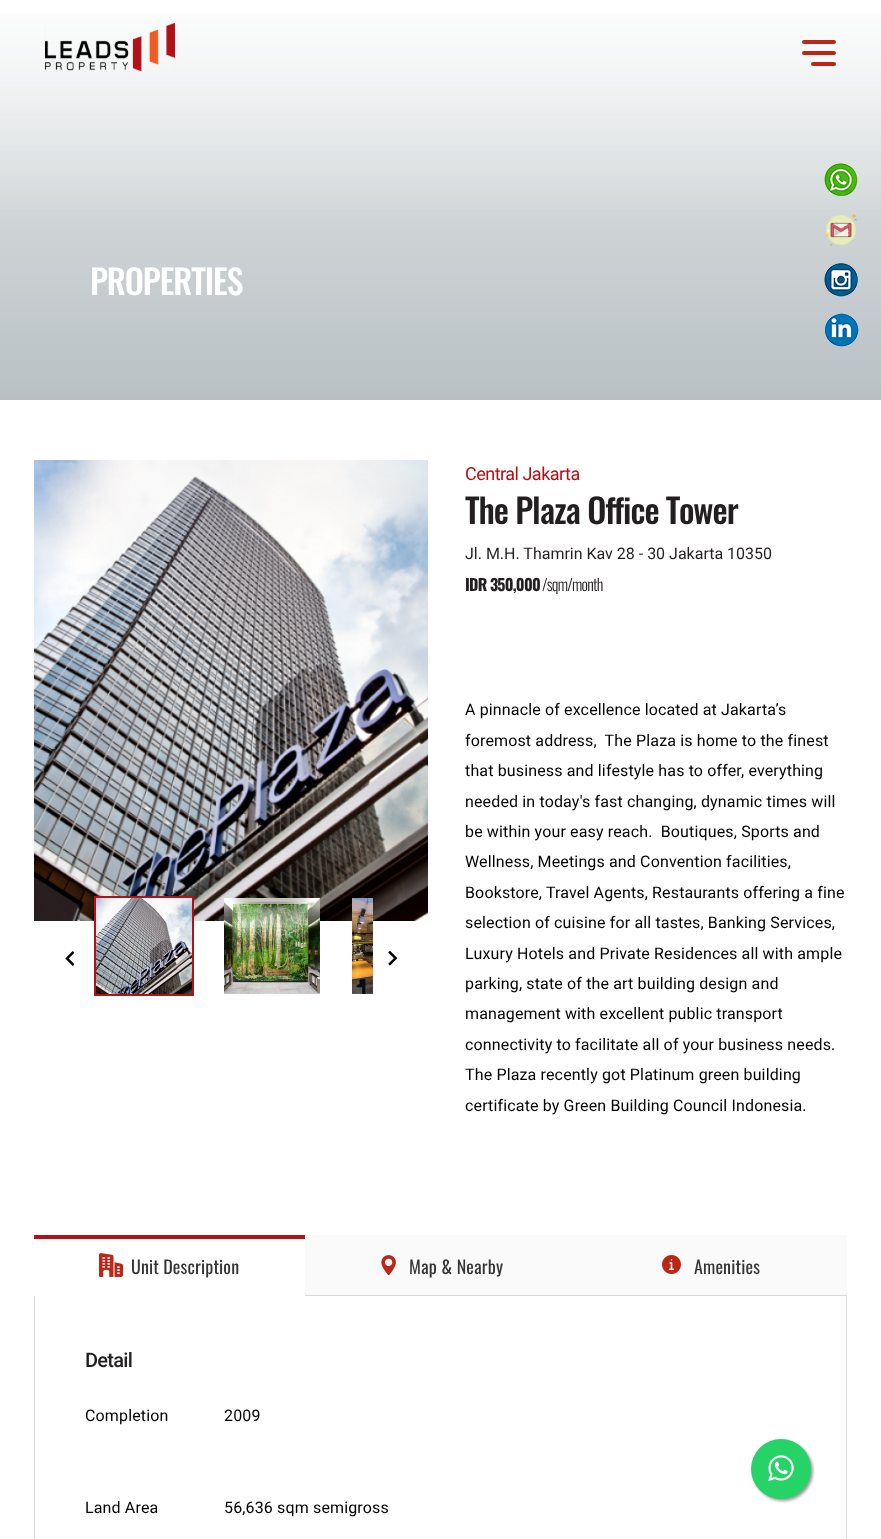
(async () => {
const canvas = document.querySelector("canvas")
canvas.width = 881
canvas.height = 1539
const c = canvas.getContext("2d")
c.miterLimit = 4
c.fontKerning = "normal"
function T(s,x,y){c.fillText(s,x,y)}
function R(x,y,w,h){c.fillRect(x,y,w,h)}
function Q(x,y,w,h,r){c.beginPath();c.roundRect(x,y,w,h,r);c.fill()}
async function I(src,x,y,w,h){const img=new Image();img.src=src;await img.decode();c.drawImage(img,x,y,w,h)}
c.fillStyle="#fff"
R(0,0,881,1539)
await I("2.png",0,14,881,386)
await I("1.png",45,23,130,48)
c.fillStyle="#ba2718"
Q(802,40,34,4,2)
Q(802,51,34,4,2)
Q(811,62,25,4,2)
c.letterSpacing="-1px"
c.font="500 34px Oswald"
c.fillStyle="#fff"
T("PROPERTIES",90,295)
await I("3.png",824,163,34,33)
await I("4.png",825,214,32,32)
await I("5.png",824,263,34,34)
await I("6.png",825,313,34,34)
await I("7.png",34,460,394,461)
await I("8.png",65,951,9,15)
c.strokeStyle="#b21117"
c.lineWidth=2
c.strokeRect(95,897,98,98)
await I("9.png",96,898,96,96)
await I("10.png",224,898,96,96)
await I("11.png",352,898,21,96)
await I("12.png",388,951,10,15)
c.letterSpacing="-0.5px"
c.font="18px Roboto"
c.fillStyle="#b21117"
T("Central Jakarta",465,480)
c.letterSpacing="-1px"
c.font="500 34px Oswald"
c.fillStyle="#231f20"
T("The Plaza Office Tower",465,524)
c.letterSpacing="0px"
c.font="16px Roboto"
T("Jl. M.H. Thamrin Kav 28 - 30 Jakarta 10350",465,559)
c.letterSpacing="-0.75px"
c.font="bold 16px Oswald"
T("IDR 350,000",465,591)
c.font="300 16px Oswald"
T("/sqm/month",542,591)
c.letterSpacing="0.15px"
c.font="16px Roboto"
c.fillStyle="#000"
T("A pinnacle of excellence located at Jakarta’s",465,715)
T("foremost address,  The Plaza is home to the finest",465,746)
T("that business and lifestyle has to offer, everything",465,776)
T("needed in today's fast changing, dynamic times will",465,807)
T("be within your easy reach.  Boutiques, Sports and",465,837)
T("Wellness, Meetings and Convention facilities,",465,867)
T("Bookstore, Travel Agents, Restaurants offering a fine",465,898)
T("selection of cuisine for all tastes, Banking Services,",465,928)
T("Luxury Hotels and Private Residences all with ample",465,959)
T("parking, state of the art building design and",465,989)
T("management with excellent public transport",465,1019)
T("connectivity to facilitate all of your business needs.",465,1050)
T("The Plaza recently got Platinum green building",465,1080)
T("certificate by Green Building Council Indonesia.",465,1111)
c.fillStyle="#d8d8d8"
R(305,1295,542,1)
c.fillStyle="#b21117"
R(34,1235,271,4)
await I("13.png",99,1253,24,24)
c.font="18px Oswald"
c.fillStyle="#363636"
T("Unit Description",131,1274)
c.fillStyle="#fafafa"
R(305,1235,542,60)
await I("14.png",381,1255,15,21)
c.fillStyle="#363636"
T("Map & Nearby",409,1274)
await I("15.png",662,1255,19,19)
T("Amenities",694,1274)
c.fillStyle="#d8d8d8"
R(846,1296,1,243)
R(34,1296,1,243)
c.letterSpacing="-0.75px"
c.font="500 20px Roboto"
c.fillStyle="#231f20"
T("Detail",85,1367)
c.letterSpacing="0.15px"
c.font="16px Roboto"
c.fillStyle="#000"
T("Completion",85,1421)
T("2009",224,1421)
T("Land Area",85,1513)
T("56,636 sqm semigross",224,1513)
c.fillStyle="#999"
c.filter="blur(1.5px)"
c.beginPath()
c.roundRect(753,1441,60,60,30)
c.fill()
c.filter="none"
c.fillStyle="#25d366"
c.beginPath()
c.arc(781,1469,30,0,7)
c.fill()
await I("16.png",768,1455,26,27)
})()
